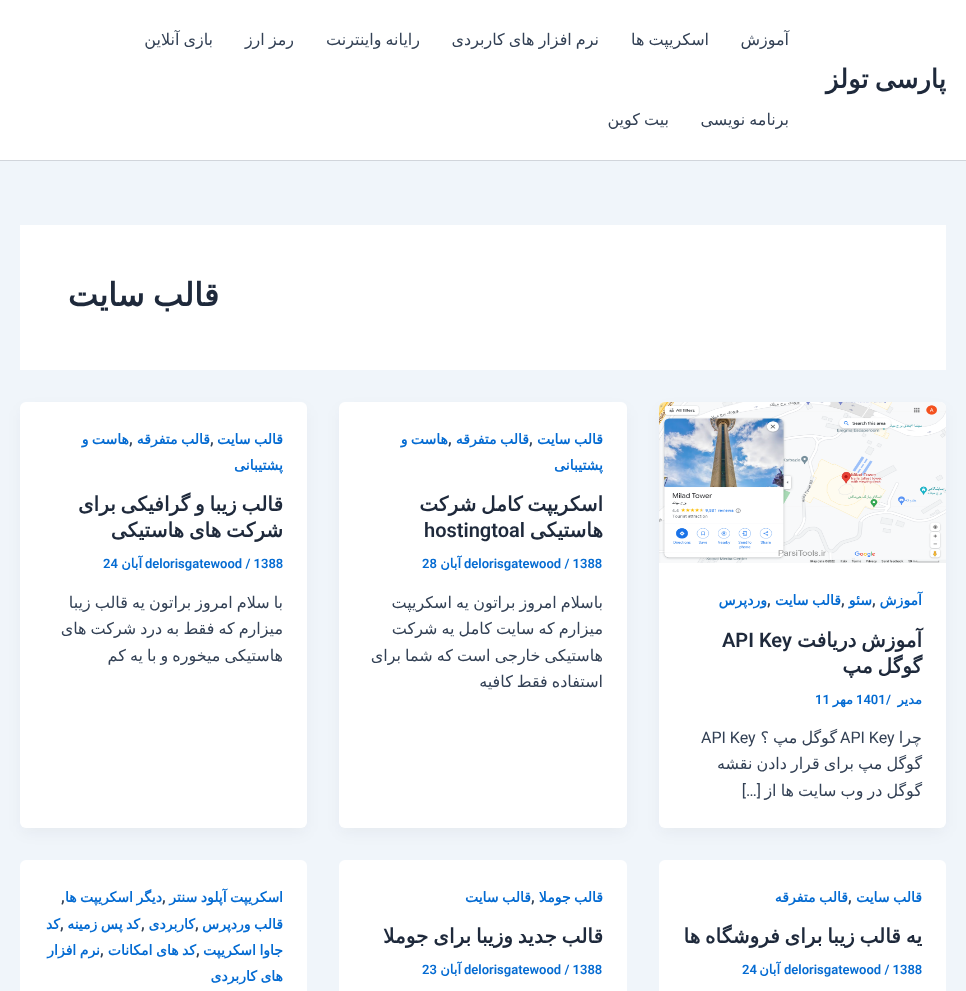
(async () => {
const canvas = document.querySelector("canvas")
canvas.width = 966
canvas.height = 991
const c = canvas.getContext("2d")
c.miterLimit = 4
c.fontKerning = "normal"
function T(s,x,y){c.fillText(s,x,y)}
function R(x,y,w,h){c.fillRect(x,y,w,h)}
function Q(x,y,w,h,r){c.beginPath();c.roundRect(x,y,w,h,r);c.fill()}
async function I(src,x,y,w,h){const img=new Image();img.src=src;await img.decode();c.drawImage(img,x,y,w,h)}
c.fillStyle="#f0f5fa"
R(0,0,966,991)
c.fillStyle="#fff"
R(0,0,966,160)
c.fillStyle="#d1d5db"
R(0,160,966,1)
c.wordSpacing="-2px"
c.direction="rtl"
c.font="bold 26px DejaVu Sans"
c.fillStyle="#1e293b"
T("پارسی تولز",946,88)
c.wordSpacing="0px"
c.font="16px DejaVu Sans"
c.fillStyle="#334155"
T("آموزش",789,45)
c.wordSpacing="-1px"
T("اسکریپت ها",709,45)
T("نرم افزار های کاربردی",599,45)
T("رایانه واینترنت",420,45)
T("رمز ارز",294,45)
T("بازی آنلاین",213,45)
T("برنامه نویسی",789,125)
T("بیت کوین",669,125)
c.fillStyle="#fff"
R(20,225,926,145)
c.wordSpacing="-2px"
c.font="bold 32px DejaVu Sans"
c.fillStyle="#1e293b"
T("قالب سايت",219,306)
c.fillStyle="#1018280d"
c.filter="blur(7.5px)"
c.beginPath()
c.roundRect(661,410,283,422,4)
c.fill()
c.filter="none"
c.fillStyle="#fff"
Q(659,402,287,426,6)
await I("1.png",659,402,287,161)
c.wordSpacing="0px"
c.font="bold 14px DejaVu Sans"
c.fillStyle="#046bd2"
T("آموزش",922,605)
c.direction="ltr"
c.font="600 16px Roboto"
c.fillStyle="#334155"
T(",",872,605)
c.direction="rtl"
c.font="bold 14px DejaVu Sans"
c.fillStyle="#046bd2"
T("سئو",872,605)
c.direction="ltr"
c.font="600 16px Roboto"
c.fillStyle="#334155"
T(",",841,605)
c.wordSpacing="-1px"
c.direction="rtl"
c.font="bold 14px DejaVu Sans"
c.fillStyle="#046bd2"
T("قالب سايت",841,605)
c.wordSpacing="0px"
c.direction="ltr"
c.font="600 16px Roboto"
c.fillStyle="#334155"
T(",",767,605)
c.direction="rtl"
c.font="bold 14px DejaVu Sans"
c.fillStyle="#046bd2"
T("وردپرس",767,605)
c.wordSpacing="-1.5px"
c.font="bold 20px DejaVu Sans"
c.fillStyle="#1e293b"
T("آموزش دریافت",922,647)
c.wordSpacing="0px"
c.direction="ltr"
c.font="600 20px Roboto"
T("API Key",722,647)
c.wordSpacing="-1.5px"
c.direction="rtl"
c.font="bold 20px DejaVu Sans"
T("گوگل مپ",922,673)
c.wordSpacing="0px"
c.font="bold 13px DejaVu Sans"
c.fillStyle="#046bd2"
T("مدیر",922,704)
c.direction="ltr"
c.font="600 13px Roboto"
T("/",886,704)
T("1401",856,704)
c.direction="rtl"
c.font="bold 13px DejaVu Sans"
T("مهر",853,704)
c.direction="ltr"
c.font="600 13px Roboto"
T("11",815,704)
c.direction="rtl"
c.font="16px DejaVu Sans"
c.fillStyle="#334155"
T("چرا",922,743)
c.direction="ltr"
c.font="16px Roboto"
T("API Key",840,743)
c.wordSpacing="-1px"
c.direction="rtl"
c.font="16px DejaVu Sans"
T("گوگل مپ ؟",837,743)
c.wordSpacing="0px"
c.direction="ltr"
c.font="16px Roboto"
T("API Key",701,743)
c.wordSpacing="-1px"
c.direction="rtl"
c.font="16px DejaVu Sans"
T("گوگل مپ برای قرار دادن نقشه",922,769)
T("گوگل در وب سایت ها از",922,796)
c.wordSpacing="0px"
c.font="16px Roboto"
T("[…]",761,796)
c.fillStyle="#1018280d"
c.filter="blur(7.5px)"
c.beginPath()
c.roundRect(341,410,284,422,4)
c.fill()
c.filter="none"
c.fillStyle="#fff"
Q(339,402,288,426,6)
c.wordSpacing="-1px"
c.font="bold 14px DejaVu Sans"
c.fillStyle="#046bd2"
T("قالب سايت",603,444)
c.wordSpacing="0px"
c.direction="ltr"
c.font="600 16px Roboto"
c.fillStyle="#334155"
T(",",529,444)
c.wordSpacing="-1px"
c.direction="rtl"
c.font="bold 14px DejaVu Sans"
c.fillStyle="#046bd2"
T("قالب متفرقه",529,444)
c.wordSpacing="0px"
c.direction="ltr"
c.font="600 16px Roboto"
c.fillStyle="#334155"
T(",",448,444)
c.wordSpacing="-1px"
c.direction="rtl"
c.font="bold 14px DejaVu Sans"
c.fillStyle="#046bd2"
T("هاست و",448,444)
c.wordSpacing="0px"
T("پشتيبانی",603,470)
c.wordSpacing="-1.5px"
c.font="bold 20px DejaVu Sans"
c.fillStyle="#1e293b"
T("اسکریپت کامل شرکت",603,511)
c.wordSpacing="0px"
T("هاستیکی",603,537)
c.direction="ltr"
c.font="600 20px Roboto"
T("hostingtoal",424,537)
c.font="600 13px Roboto"
c.fillStyle="#046bd2"
T("delorisgatewood / 1388",464,568)
c.direction="rtl"
c.font="bold 13px DejaVu Sans"
T("آبان",461,568)
c.direction="ltr"
c.font="600 13px Roboto"
T("28",422,568)
c.wordSpacing="-1px"
c.direction="rtl"
c.font="16px DejaVu Sans"
c.fillStyle="#334155"
T("باسلام امروز براتون یه اسکریپت",603,608)
T("میزارم که سایت کامل یه شرکت",603,634)
T("هاستیکی خارجی است که شما برای",603,661)
T("استفاده فقط کافیه",603,687)
c.fillStyle="#1018280d"
c.filter="blur(7.5px)"
c.beginPath()
c.roundRect(22,410,283,422,4)
c.fill()
c.filter="none"
c.fillStyle="#fff"
Q(20,402,287,426,6)
c.font="bold 14px DejaVu Sans"
c.fillStyle="#046bd2"
T("قالب سايت",283,444)
c.wordSpacing="0px"
c.direction="ltr"
c.font="600 16px Roboto"
c.fillStyle="#334155"
T(",",210,444)
c.wordSpacing="-1px"
c.direction="rtl"
c.font="bold 14px DejaVu Sans"
c.fillStyle="#046bd2"
T("قالب متفرقه",210,444)
c.wordSpacing="0px"
c.direction="ltr"
c.font="600 16px Roboto"
c.fillStyle="#334155"
T(",",129,444)
c.wordSpacing="-1px"
c.direction="rtl"
c.font="bold 14px DejaVu Sans"
c.fillStyle="#046bd2"
T("هاست و",129,444)
c.wordSpacing="0px"
T("پشتيبانی",283,470)
c.wordSpacing="-1.5px"
c.font="bold 20px DejaVu Sans"
c.fillStyle="#1e293b"
T("قالب زیبا و گرافیکی برای",283,511)
T("شرکت های هاستیکی",283,537)
c.wordSpacing="0px"
c.direction="ltr"
c.font="600 13px Roboto"
c.fillStyle="#046bd2"
T("delorisgatewood / 1388",145,568)
c.direction="rtl"
c.font="bold 13px DejaVu Sans"
T("آبان",142,568)
c.direction="ltr"
c.font="600 13px Roboto"
T("24",103,568)
c.wordSpacing="-1px"
c.direction="rtl"
c.font="16px DejaVu Sans"
c.fillStyle="#334155"
T("با سلام امروز براتون یه قالب زیبا",283,608)
T("میزارم که فقط به درد شرکت های",283,634)
T("هاستیکی میخوره و با یه کم",283,661)
c.fillStyle="#fff"
Q(659,860,287,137,6)
c.font="bold 14px DejaVu Sans"
c.fillStyle="#046bd2"
T("قالب سايت",922,902)
c.wordSpacing="0px"
c.direction="ltr"
c.font="600 16px Roboto"
c.fillStyle="#334155"
T(",",848,902)
c.wordSpacing="-1px"
c.direction="rtl"
c.font="bold 14px DejaVu Sans"
c.fillStyle="#046bd2"
T("قالب متفرقه",848,902)
c.wordSpacing="-1.5px"
c.font="bold 20px DejaVu Sans"
c.fillStyle="#1e293b"
T("یه قالب زیبا برای فروشگاه ها",922,943)
c.wordSpacing="0px"
c.direction="ltr"
c.font="600 13px Roboto"
c.fillStyle="#046bd2"
T("delorisgatewood / 1388",784,974)
c.direction="rtl"
c.font="bold 13px DejaVu Sans"
T("آبان",780,974)
c.direction="ltr"
c.font="600 13px Roboto"
T("24",742,974)
c.fillStyle="#fff"
Q(339,860,288,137,6)
c.wordSpacing="-1px"
c.direction="rtl"
c.font="bold 14px DejaVu Sans"
c.fillStyle="#046bd2"
T("قالب جوملا",603,902)
c.wordSpacing="0px"
c.direction="ltr"
c.font="600 16px Roboto"
c.fillStyle="#334155"
T(",",531,902)
c.wordSpacing="-1px"
c.direction="rtl"
c.font="bold 14px DejaVu Sans"
c.fillStyle="#046bd2"
T("قالب سايت",531,902)
c.wordSpacing="-1.5px"
c.font="bold 20px DejaVu Sans"
c.fillStyle="#1e293b"
T("قالب جدید وزیبا برای جوملا",603,943)
c.wordSpacing="0px"
c.direction="ltr"
c.font="600 13px Roboto"
c.fillStyle="#046bd2"
T("delorisgatewood / 1388",464,974)
c.direction="rtl"
c.font="bold 13px DejaVu Sans"
T("آبان",461,974)
c.direction="ltr"
c.font="600 13px Roboto"
T("23",422,974)
c.fillStyle="#fff"
Q(20,860,287,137,6)
c.wordSpacing="-1px"
c.direction="rtl"
c.font="bold 14px DejaVu Sans"
c.fillStyle="#046bd2"
T("اسكريپت آپلود سنتر",283,902)
c.wordSpacing="0px"
c.direction="ltr"
c.font="600 16px Roboto"
c.fillStyle="#334155"
T(",",162,902)
c.wordSpacing="-1px"
c.direction="rtl"
c.font="bold 14px DejaVu Sans"
c.fillStyle="#046bd2"
T("ديگر اسكريپت ها",162,902)
c.wordSpacing="0px"
c.direction="ltr"
c.font="600 16px Roboto"
c.fillStyle="#334155"
T(",",61,902)
c.wordSpacing="-1px"
c.direction="rtl"
c.font="bold 14px DejaVu Sans"
c.fillStyle="#046bd2"
T("قالب وردپرس",283,929)
c.wordSpacing="0px"
T("كاربردی",195,929)
c.direction="ltr"
c.font="600 16px Roboto"
c.fillStyle="#334155"
T(",",141,929)
c.wordSpacing="-1px"
c.direction="rtl"
c.font="bold 14px DejaVu Sans"
c.fillStyle="#046bd2"
T("كد پس زمينه",140,929)
c.wordSpacing="0px"
c.direction="ltr"
c.font="600 16px Roboto"
c.fillStyle="#334155"
T(",",60,929)
c.direction="rtl"
c.font="bold 14px DejaVu Sans"
c.fillStyle="#046bd2"
T("كد",60,929)
c.direction="ltr"
c.font="600 16px Roboto"
c.fillStyle="#334155"
T(",",195,929)
c.wordSpacing="-1px"
c.direction="rtl"
c.font="bold 14px DejaVu Sans"
c.fillStyle="#046bd2"
T("جاوا اسكريپت",283,955)
c.wordSpacing="0px"
c.direction="ltr"
c.font="600 16px Roboto"
c.fillStyle="#334155"
T(",",196,955)
c.wordSpacing="-1px"
c.direction="rtl"
c.font="bold 14px DejaVu Sans"
c.fillStyle="#046bd2"
T("كد های امكانات",196,955)
c.wordSpacing="0px"
c.direction="ltr"
c.font="600 16px Roboto"
c.fillStyle="#334155"
T(",",100,955)
c.wordSpacing="-1px"
c.direction="rtl"
c.font="bold 14px DejaVu Sans"
c.fillStyle="#046bd2"
T("نرم افزار",100,955)
T("های كاربردی",283,981)
})()
